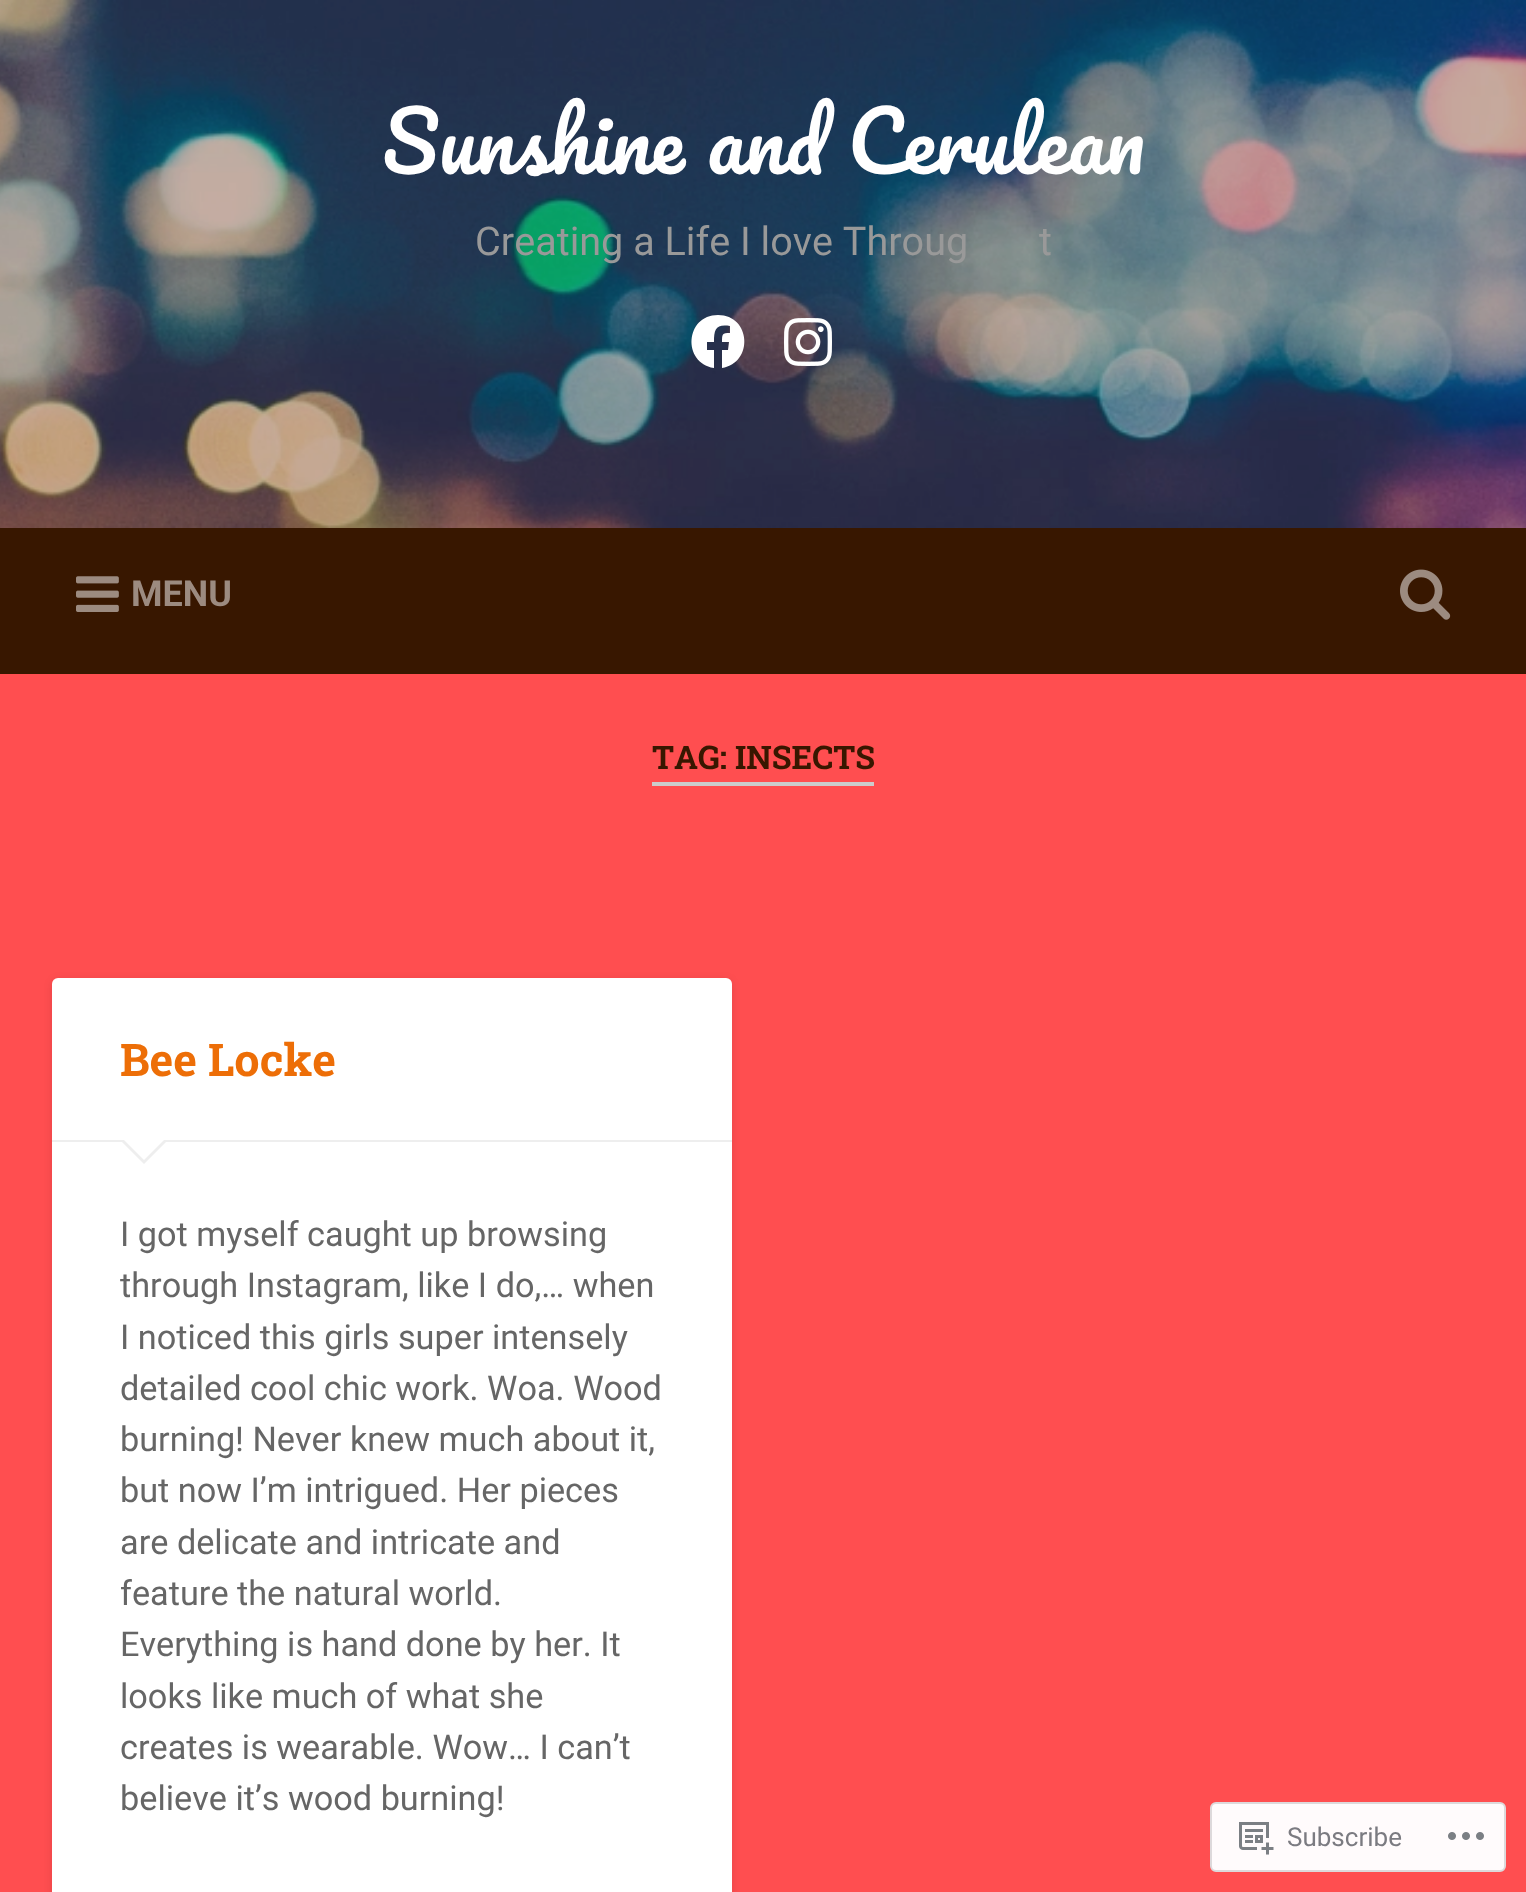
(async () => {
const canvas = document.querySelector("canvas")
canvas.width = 1526
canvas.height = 1892
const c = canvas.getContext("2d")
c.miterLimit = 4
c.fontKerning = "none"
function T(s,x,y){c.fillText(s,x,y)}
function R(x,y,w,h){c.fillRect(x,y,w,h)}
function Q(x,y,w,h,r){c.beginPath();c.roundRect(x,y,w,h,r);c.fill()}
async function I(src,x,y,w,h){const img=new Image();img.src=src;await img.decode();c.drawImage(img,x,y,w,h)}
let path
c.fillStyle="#ff4e50"
R(0,0,1526,1892)
await I("1.png",0,0,1526,528)
c.wordSpacing="1px"
c.font="81px Pacifico"
c.fillStyle="#fff"
T("Sunshine and Cerulean",382,174)
c.wordSpacing="0px"
c.font="39.6px Roboto"
c.fillStyle="#999"
T("Creating a Life I love Throug",475,255)
T("t",1039,255)
c.fillStyle="#fff"
path = new Path2D("M718 315c-33 0-36 48-4 53v-18h-7v-8h7c0-13 2-18 16-16v7c-8 0-8 1-8 9h7l-1 8h-6v18c32-5 29-53-4-53z")
c.fill(path)
await I("2.png",784,318,48,48)
c.fillStyle="#381700"
R(0,528,1526,146)
await I("3.png",76,576,43,36)
c.font="bold 36px Roboto"
c.fillStyle="#9c8b80"
T("MENU",131,606)
await I("4.png",1400,569,51,51)
c.fillStyle="#ccc"
R(652,782,222,4)
c.font="bold 32.5px Roboto Slab"
c.fillStyle="#381700"
T("TAG: INSECTS",652,769)
c.fillStyle="#0000001a"
c.filter="blur(4px)"
c.beginPath()
c.roundRect(52,980,680,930,6)
c.fill()
c.filter="none"
c.fillStyle="#fff"
Q(52,978,680,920,6)
c.fillStyle="#eee"
R(52,1140,680,2)
c.font="bold 45px Roboto Slab"
c.fillStyle="#ed6e07"
T("Bee Locke",120,1076)
c.fillStyle="#eee"
path = new Path2D("M120 1140h48l-24 24z")
c.fill(path)
c.fillStyle="#fff"
path = new Path2D("M122 1138h44l-22 22z")
c.fill(path)
c.font="34.25px Roboto"
c.fillStyle="#666"
T("I got myself caught up browsing",120,1246)
T("through Instagram, like I do,… when",120,1297)
T("I noticed this girls super intensely",120,1349)
T("detailed cool chic work. Woa. Wood",120,1400)
T("burning! Never knew much about it,",120,1451)
T("but now I’m intrigued. Her pieces",120,1502)
T("are delicate and intricate and",120,1554)
T("feature the natural world.",120,1605)
T("Everything is hand done by her. It",120,1656)
T("looks like much of what she",120,1708)
T("creates is wearable. Wow… I can’t",120,1759)
T("believe it’s wood burning!",120,1810)
c.fillStyle="#fffbfc"
c.beginPath()
c.roundRect(1211,1803,294,68,5)
c.fill()
c.strokeStyle="#ddd9db"
c.lineWidth=2
c.stroke()
await I("5.png",1239,1822,35,33)
c.font="26px Roboto"
c.fillStyle="#7b7b81"
T("Subscribe",1287,1846)
await I("6.png",1448,1832,36,8)
})()
